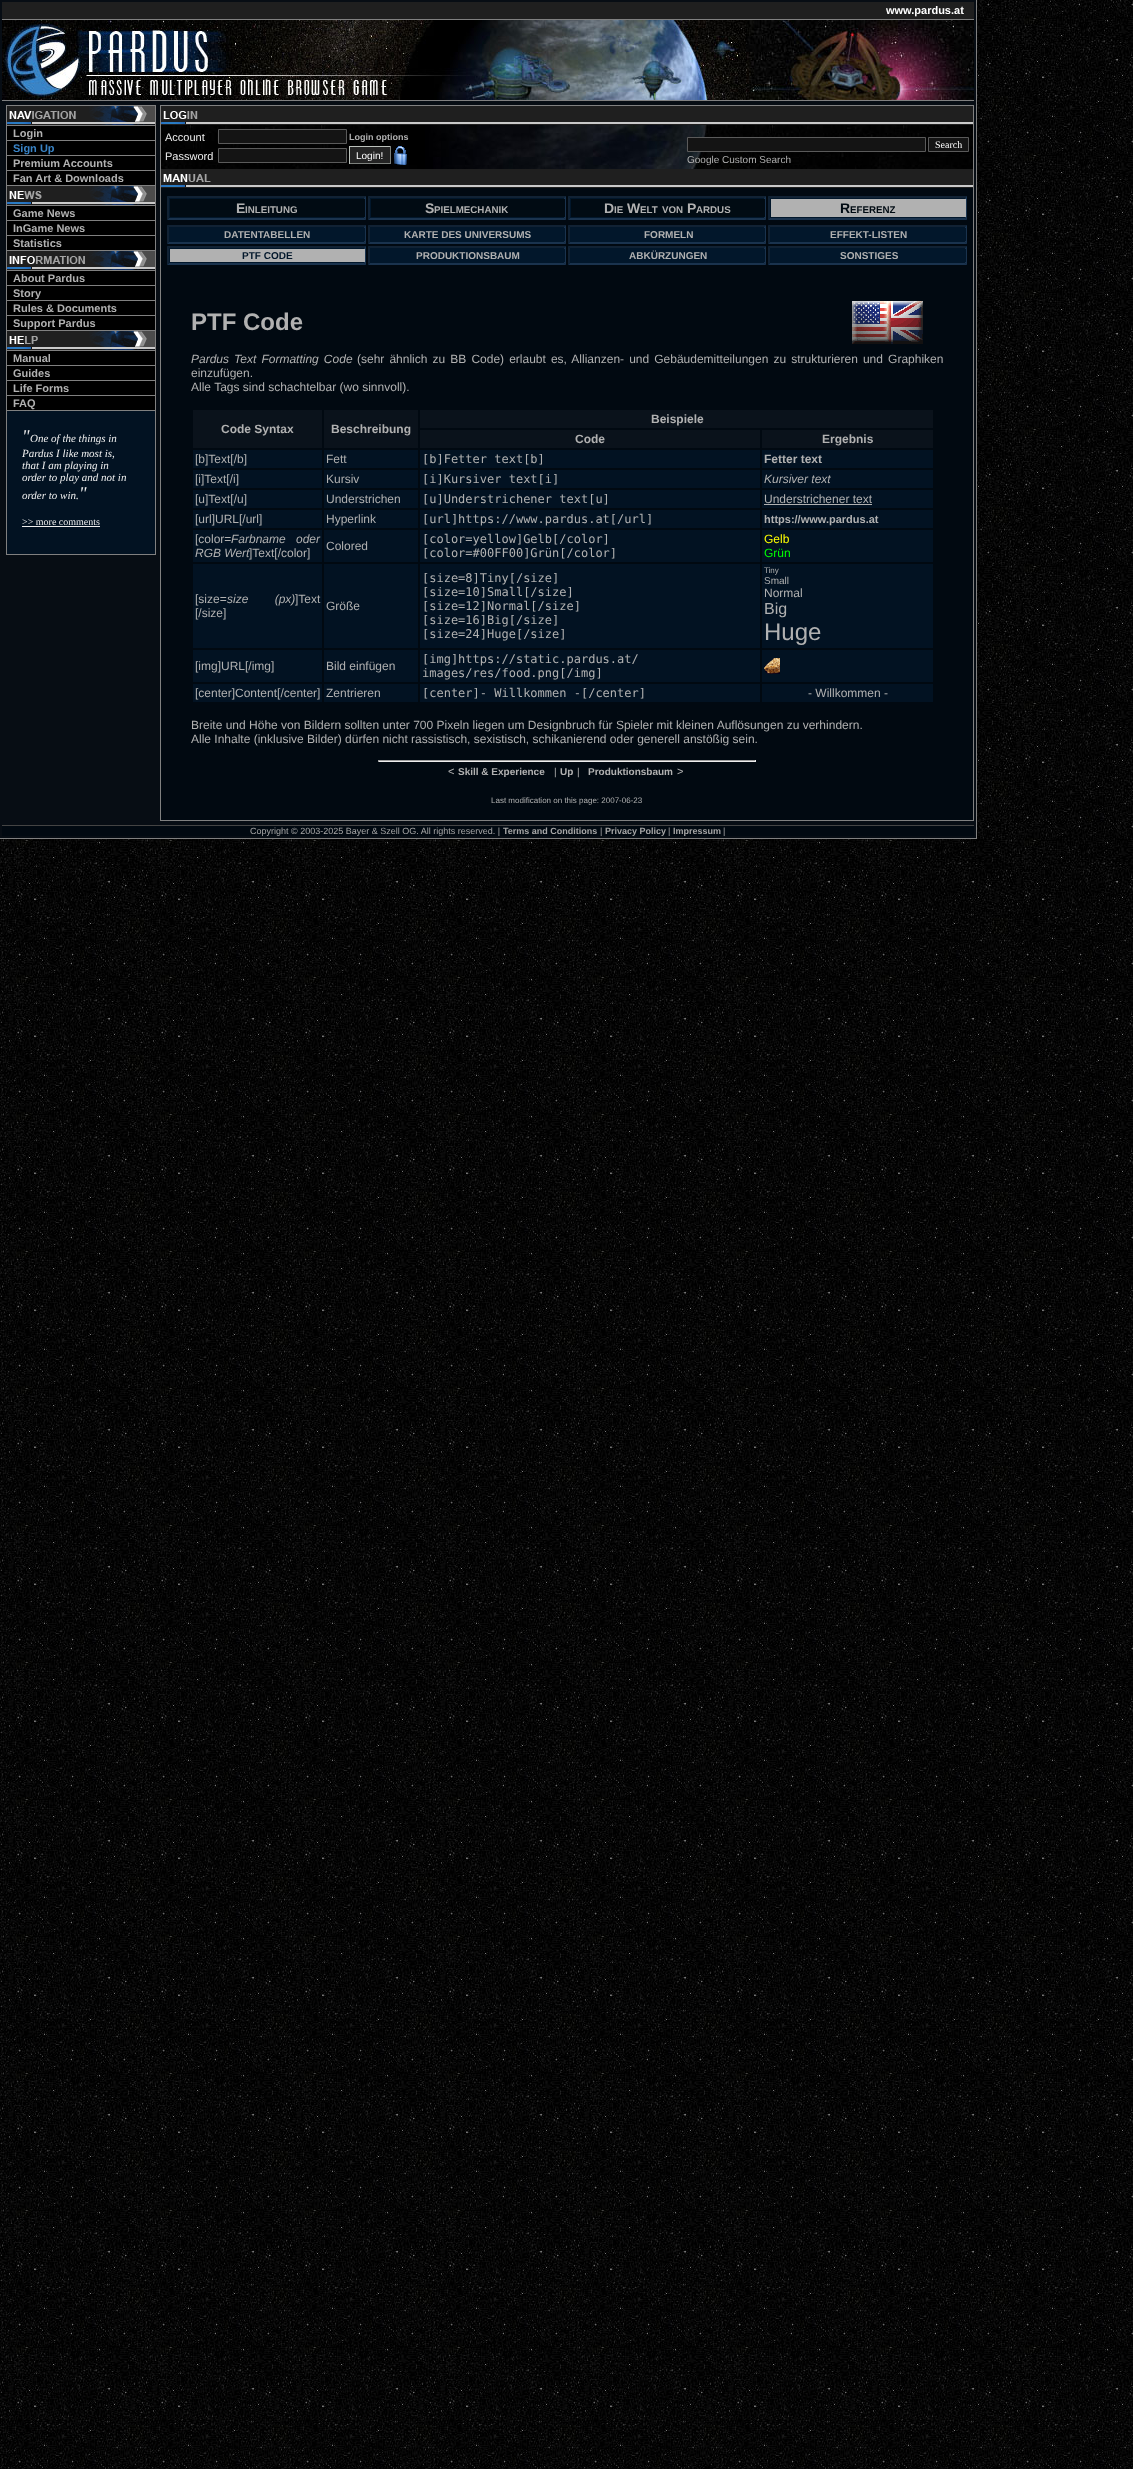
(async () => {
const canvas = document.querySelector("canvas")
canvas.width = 1133
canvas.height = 2469
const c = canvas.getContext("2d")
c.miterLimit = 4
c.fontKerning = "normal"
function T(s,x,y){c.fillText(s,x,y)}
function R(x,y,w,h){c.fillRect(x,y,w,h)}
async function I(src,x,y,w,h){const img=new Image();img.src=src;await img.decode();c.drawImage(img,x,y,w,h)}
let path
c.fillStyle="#fff"
R(0,0,1133,2469)
await I("1.png",0,0,1133,2469)
c.fillStyle="#070d14"
R(0,0,976,838)
c.fillStyle="#808080"
R(976,0,1,839)
R(0,838,977,1)
c.fillStyle="#1f1f1f"
R(2,2,972,17)
c.fillStyle="#808080"
R(2,19,972,1)
c.font="bold 11px Liberation Sans"
c.fillStyle="#fff"
T("www.pardus.at",886,14)
await I("2.png",2,20,972,80)
c.fillStyle="#808080"
R(2,100,972,1)
c.fillStyle="#021222"
R(7,411,148,143)
c.strokeStyle="#808080"
c.strokeRect(6.5,105.5,149,449)
c.fillStyle="#808080"
R(7,125,148,1)
await I("3.png",7,106,148,19)
R(7,140,148,1)
c.fillStyle="#000"
R(7,126,148,14)
c.fillStyle="#b1b1b1"
T("Login",13,137)
c.fillStyle="#808080"
R(7,155,148,1)
c.fillStyle="#000"
R(7,141,148,14)
c.fillStyle="#3984c7"
T("Sign Up",13,152)
c.fillStyle="#808080"
R(7,170,148,1)
c.fillStyle="#000"
R(7,156,148,14)
c.fillStyle="#b1b1b1"
T("Premium Accounts",13,167)
c.fillStyle="#808080"
R(7,185,148,1)
c.fillStyle="#000"
R(7,171,148,14)
c.fillStyle="#b1b1b1"
T("Fan Art & Downloads",13,182)
c.fillStyle="#808080"
R(7,205,148,1)
await I("4.png",7,186,148,19)
R(7,220,148,1)
c.fillStyle="#000"
R(7,206,148,14)
c.fillStyle="#b1b1b1"
T("Game News",13,217)
c.fillStyle="#808080"
R(7,235,148,1)
c.fillStyle="#000"
R(7,221,148,14)
c.fillStyle="#b1b1b1"
T("InGame News",13,232)
c.fillStyle="#808080"
R(7,250,148,1)
c.fillStyle="#000"
R(7,236,148,14)
c.fillStyle="#b1b1b1"
T("Statistics",13,247)
c.fillStyle="#808080"
R(7,270,148,1)
await I("5.png",7,251,148,19)
R(7,285,148,1)
c.fillStyle="#000"
R(7,271,148,14)
c.fillStyle="#b1b1b1"
T("About Pardus",13,282)
c.fillStyle="#808080"
R(7,300,148,1)
c.fillStyle="#000"
R(7,286,148,14)
c.fillStyle="#b1b1b1"
T("Story",13,297)
c.fillStyle="#808080"
R(7,315,148,1)
c.fillStyle="#000"
R(7,301,148,14)
c.fillStyle="#b1b1b1"
T("Rules & Documents",13,312)
c.fillStyle="#808080"
R(7,330,148,1)
c.fillStyle="#000"
R(7,316,148,14)
c.fillStyle="#b1b1b1"
T("Support Pardus",13,327)
c.fillStyle="#808080"
R(7,350,148,1)
await I("6.png",7,331,148,19)
R(7,365,148,1)
c.fillStyle="#000"
R(7,351,148,14)
c.fillStyle="#b1b1b1"
T("Manual",13,362)
c.fillStyle="#808080"
R(7,380,148,1)
c.fillStyle="#000"
R(7,366,148,14)
c.fillStyle="#b1b1b1"
T("Guides",13,377)
c.fillStyle="#808080"
R(7,395,148,1)
c.fillStyle="#000"
R(7,381,148,14)
c.fillStyle="#b1b1b1"
T("Life Forms",13,392)
c.fillStyle="#808080"
R(7,410,148,1)
c.fillStyle="#000"
R(7,396,148,14)
c.fillStyle="#b1b1b1"
T("FAQ",13,407)
c.font="italic 18px Liberation Serif"
c.fillStyle="#eee"
T("\"",22,442)
c.font="italic 11px Liberation Serif"
T("One of the things in",30,442)
T("Pardus I like most is,",22,457)
T("that I am playing in",22,469)
T("order to play and not in",22,481)
c.font="italic 18px Liberation Serif"
T("\"",79,499)
c.font="italic 11px Liberation Serif"
T("order to win.",22,499)
c.font="10px Liberation Serif"
T(">> more comments",22,525)
R(22,526,78,1)
c.fillStyle="#010911"
R(161,188,812,632)
c.strokeRect(160.5,105.5,813,715)
await I("7.png",161,106,812,19)
await I("8.png",161,111,37,13)
await I("9.png",161,125,812,44)
c.font="11px Liberation Sans"
c.fillStyle="#eee"
T("Account",165,141)
c.fillStyle="#141414"
c.beginPath()
c.rect(218.5,129.5,128,14)
c.fill()
c.strokeStyle="#5a5a5a"
c.stroke()
c.font="bold 9px Liberation Sans"
c.fillStyle="#b1b1b1"
T("Login options",349,140)
c.font="11px Liberation Sans"
c.fillStyle="#eee"
T("Password",165,160)
c.fillStyle="#141414"
c.beginPath()
c.rect(218.5,148.5,128,14)
c.fill()
c.stroke()
c.fillStyle="#242424"
R(350,147,40,16)
c.fillStyle="#bcc2bc"
R(349,146,42,1)
c.fillStyle="#7d817d"
R(390,146,1,18)
R(349,163,42,1)
c.fillStyle="#bcc2bc"
R(349,146,1,18)
c.font="10px Liberation Sans"
c.fillStyle="#fff"
T("Login!",356,159)
await I("10.png",394,146,13,19)
c.fillStyle="#141414"
c.beginPath()
c.rect(687.5,137.5,238,14)
c.fill()
c.stroke()
c.beginPath()
c.rect(928.5,137.5,40,14)
c.fill()
c.stroke()
c.font="10px Liberation Serif"
c.fillStyle="#fff"
T("Search",935,148)
c.font="10px Liberation Sans"
c.fillStyle="#b1b1b1"
T("Google Custom Search",687,163)
await I("7.png",161,169,812,19)
await I("11.png",161,174,50,13)
c.fillStyle="#02172b"
R(167,196,199,24)
c.fillStyle="#112234"
path = new Path2D("M167 196h199l-2 2h-195z")
c.fill(path)
c.fillStyle="#1a334e"
path = new Path2D("M366 196v24l-2-2v-20z")
c.fill(path)
path = new Path2D("M366 220h-199l2-2h195z")
c.fill(path)
c.fillStyle="#112234"
path = new Path2D("M167 220v-24l2 2v20z")
c.fill(path)
c.fillStyle="#010b13"
R(170,199,195,18)
c.font="bold 14px Liberation Sans"
c.fillStyle="#b1b1b1"
T("E",236,213)
c.font="bold 9.75px Liberation Sans"
T("INLEITUNG",245,213)
c.fillStyle="#02172b"
R(368,196,198,24)
c.fillStyle="#112234"
path = new Path2D("M368 196h198l-2 2h-194z")
c.fill(path)
c.fillStyle="#1a334e"
path = new Path2D("M566 196v24l-2-2v-20z")
c.fill(path)
path = new Path2D("M566 220h-198l2-2h194z")
c.fill(path)
c.fillStyle="#112234"
path = new Path2D("M368 220v-24l2 2v20z")
c.fill(path)
c.fillStyle="#010b13"
R(371,199,194,18)
c.font="bold 14px Liberation Sans"
c.fillStyle="#b1b1b1"
T("S",425,213)
c.font="bold 9.75px Liberation Sans"
T("PIELMECHANIK",434,213)
c.fillStyle="#02172b"
R(568,196,198,24)
c.fillStyle="#112234"
path = new Path2D("M568 196h198l-2 2h-194z")
c.fill(path)
c.fillStyle="#1a334e"
path = new Path2D("M766 196v24l-2-2v-20z")
c.fill(path)
path = new Path2D("M766 220h-198l2-2h194z")
c.fill(path)
c.fillStyle="#112234"
path = new Path2D("M568 220v-24l2 2v20z")
c.fill(path)
c.fillStyle="#010b13"
R(571,199,194,18)
c.font="bold 14px Liberation Sans"
c.fillStyle="#b1b1b1"
T("D",604,213)
c.font="bold 9.75px Liberation Sans"
T("IE",614,213)
c.font="bold 14px Liberation Sans"
T("W",627,213)
c.font="bold 9.75px Liberation Sans"
T("ELT",640,213)
T("VON",662,213)
c.font="bold 14px Liberation Sans"
T("P",687,213)
c.font="bold 9.75px Liberation Sans"
T("ARDUS",696,213)
c.fillStyle="#02172b"
R(768,196,199,24)
c.fillStyle="#112234"
path = new Path2D("M768 196h199l-2 2h-195z")
c.fill(path)
c.fillStyle="#1a334e"
path = new Path2D("M967 196v24l-2-2v-20z")
c.fill(path)
path = new Path2D("M967 220h-199l2-2h195z")
c.fill(path)
c.fillStyle="#112234"
path = new Path2D("M768 220v-24l2 2v20z")
c.fill(path)
c.fillStyle="#b1b1b1"
R(771,199,195,18)
c.font="bold 14px Liberation Sans"
c.fillStyle="#010b13"
T("R",840,213)
c.font="bold 9.75px Liberation Sans"
T("EFERENZ",850,213)
c.fillStyle="#02172b"
R(167,225,199,19)
c.fillStyle="#112234"
path = new Path2D("M167 225h199l-2 2h-195z")
c.fill(path)
c.fillStyle="#1a334e"
path = new Path2D("M366 225v19l-2-2v-15z")
c.fill(path)
path = new Path2D("M366 244h-199l2-2h195z")
c.fill(path)
c.fillStyle="#112234"
path = new Path2D("M167 244v-19l2 2v15z")
c.fill(path)
c.fillStyle="#02172b"
R(364,228,1,13)
c.font="bold 10px Liberation Sans"
c.fillStyle="#b1b1b1"
T("DATENTABELLEN",224,238)
c.fillStyle="#02172b"
R(368,225,198,19)
c.fillStyle="#112234"
path = new Path2D("M368 225h198l-2 2h-194z")
c.fill(path)
c.fillStyle="#1a334e"
path = new Path2D("M566 225v19l-2-2v-15z")
c.fill(path)
path = new Path2D("M566 244h-198l2-2h194z")
c.fill(path)
c.fillStyle="#112234"
path = new Path2D("M368 244v-19l2 2v15z")
c.fill(path)
c.fillStyle="#02172b"
R(564,228,1,13)
c.fillStyle="#b1b1b1"
T("KARTE DES UNIVERSUMS",404,238)
c.fillStyle="#02172b"
R(568,225,198,19)
c.fillStyle="#112234"
path = new Path2D("M568 225h198l-2 2h-194z")
c.fill(path)
c.fillStyle="#1a334e"
path = new Path2D("M766 225v19l-2-2v-15z")
c.fill(path)
path = new Path2D("M766 244h-198l2-2h194z")
c.fill(path)
c.fillStyle="#112234"
path = new Path2D("M568 244v-19l2 2v15z")
c.fill(path)
c.fillStyle="#02172b"
R(764,228,1,13)
c.fillStyle="#b1b1b1"
T("FORMELN",644,238)
c.fillStyle="#02172b"
R(768,225,199,19)
c.fillStyle="#112234"
path = new Path2D("M768 225h199l-2 2h-195z")
c.fill(path)
c.fillStyle="#1a334e"
path = new Path2D("M967 225v19l-2-2v-15z")
c.fill(path)
path = new Path2D("M967 244h-199l2-2h195z")
c.fill(path)
c.fillStyle="#112234"
path = new Path2D("M768 244v-19l2 2v15z")
c.fill(path)
c.fillStyle="#02172b"
R(965,228,1,13)
c.fillStyle="#b1b1b1"
T("EFFEKT-LISTEN",830,238)
c.fillStyle="#02172b"
R(167,246,199,19)
c.fillStyle="#112234"
path = new Path2D("M167 246h199l-2 2h-195z")
c.fill(path)
c.fillStyle="#1a334e"
path = new Path2D("M366 246v19l-2-2v-15z")
c.fill(path)
path = new Path2D("M366 265h-199l2-2h195z")
c.fill(path)
c.fillStyle="#112234"
path = new Path2D("M167 265v-19l2 2v15z")
c.fill(path)
c.fillStyle="#b1b1b1"
R(170,249,195,13)
c.fillStyle="#02172b"
T("PTF CODE",242,259)
R(368,246,198,19)
c.fillStyle="#112234"
path = new Path2D("M368 246h198l-2 2h-194z")
c.fill(path)
c.fillStyle="#1a334e"
path = new Path2D("M566 246v19l-2-2v-15z")
c.fill(path)
path = new Path2D("M566 265h-198l2-2h194z")
c.fill(path)
c.fillStyle="#112234"
path = new Path2D("M368 265v-19l2 2v15z")
c.fill(path)
c.fillStyle="#02172b"
R(564,249,1,13)
c.fillStyle="#b1b1b1"
T("PRODUKTIONSBAUM",416,259)
c.fillStyle="#02172b"
R(568,246,198,19)
c.fillStyle="#112234"
path = new Path2D("M568 246h198l-2 2h-194z")
c.fill(path)
c.fillStyle="#1a334e"
path = new Path2D("M766 246v19l-2-2v-15z")
c.fill(path)
path = new Path2D("M766 265h-198l2-2h194z")
c.fill(path)
c.fillStyle="#112234"
path = new Path2D("M568 265v-19l2 2v15z")
c.fill(path)
c.fillStyle="#02172b"
R(764,249,1,13)
c.fillStyle="#b1b1b1"
T("ABKÜRZUNGEN",629,259)
c.fillStyle="#02172b"
R(768,246,199,19)
c.fillStyle="#112234"
path = new Path2D("M768 246h199l-2 2h-195z")
c.fill(path)
c.fillStyle="#1a334e"
path = new Path2D("M967 246v19l-2-2v-15z")
c.fill(path)
path = new Path2D("M967 265h-199l2-2h195z")
c.fill(path)
c.fillStyle="#112234"
path = new Path2D("M768 265v-19l2 2v15z")
c.fill(path)
c.fillStyle="#02172b"
R(965,249,1,13)
c.fillStyle="#b1b1b1"
T("SONSTIGES",840,259)
c.font="bold 24px Liberation Sans"
T("PTF Code",191,330)
await I("12.png",852,301,71,43)
c.wordSpacing="1.75px"
c.font="italic 12px Liberation Sans"
T("Pardus Text Formatting Code",191,363)
c.font="12px Liberation Sans"
T("(sehr ähnlich zu BB Code) erlaubt es, Allianzen- und Gebäudemitteilungen zu strukturieren und Graphiken",357,363)
c.wordSpacing="0px"
T("einzufügen.",191,377)
T("Alle Tags sind schachtelbar (wo sinnvoll).",191,391)
c.fillStyle="#0a121b"
R(420,410,513,18)
c.font="bold 12px Liberation Sans"
c.fillStyle="#b1b1b1"
T("Beispiele",651,423)
c.fillStyle="#0a121b"
R(193,410,129,38)
c.fillStyle="#b1b1b1"
T("Code Syntax",221,433)
c.fillStyle="#0a121b"
R(324,410,94,38)
c.fillStyle="#b1b1b1"
T("Beschreibung",331,433)
c.fillStyle="#0a121b"
R(420,430,340,18)
c.fillStyle="#b1b1b1"
T("Code",575,443)
c.fillStyle="#0a121b"
R(762,430,171,18)
c.fillStyle="#b1b1b1"
T("Ergebnis",822,443)
c.fillStyle="#021222"
R(193,450,129,18)
c.font="12px Liberation Sans"
c.fillStyle="#b1b1b1"
T("[b]Text[/b]",195,463)
c.fillStyle="#021222"
R(324,450,94,18)
c.fillStyle="#b1b1b1"
T("Fett",326,463)
c.fillStyle="#021222"
R(420,450,340,18)
c.font="12px DejaVu Sans Mono"
c.fillStyle="#b1b1b1"
T("[b]Fetter text[b]",422,463)
c.fillStyle="#021222"
R(762,450,171,18)
c.font="bold 12px Liberation Sans"
c.fillStyle="#b1b1b1"
T("Fetter text",764,463)
c.fillStyle="#021222"
R(193,470,129,18)
c.font="12px Liberation Sans"
c.fillStyle="#b1b1b1"
T("[i]Text[/i]",195,483)
c.fillStyle="#021222"
R(324,470,94,18)
c.fillStyle="#b1b1b1"
T("Kursiv",326,483)
c.fillStyle="#021222"
R(420,470,340,18)
c.font="12px DejaVu Sans Mono"
c.fillStyle="#b1b1b1"
T("[i]Kursiver text[i]",422,483)
c.fillStyle="#021222"
R(762,470,171,18)
c.font="italic 12px Liberation Sans"
c.fillStyle="#b1b1b1"
T("Kursiver text",764,483)
c.fillStyle="#021222"
R(193,490,129,18)
c.font="12px Liberation Sans"
c.fillStyle="#b1b1b1"
T("[u]Text[/u]",195,503)
c.fillStyle="#021222"
R(324,490,94,18)
c.fillStyle="#b1b1b1"
T("Understrichen",326,503)
c.fillStyle="#021222"
R(420,490,340,18)
c.font="12px DejaVu Sans Mono"
c.fillStyle="#b1b1b1"
T("[u]Understrichener text[u]",422,503)
c.fillStyle="#021222"
R(762,490,171,18)
c.font="12px Liberation Sans"
c.fillStyle="#b1b1b1"
T("Understrichener text",764,503)
c.fillStyle="#b0b0b0"
R(764,504,108,1)
c.fillStyle="#021222"
R(193,510,129,18)
c.fillStyle="#b1b1b1"
T("[url]URL[/url]",195,523)
c.fillStyle="#021222"
R(324,510,94,18)
c.fillStyle="#b1b1b1"
T("Hyperlink",326,523)
c.fillStyle="#021222"
R(420,510,340,18)
c.font="12px DejaVu Sans Mono"
c.fillStyle="#b1b1b1"
T("[url]https://www.pardus.at[/url]",422,523)
c.fillStyle="#021222"
R(762,510,171,18)
c.font="bold 11px Liberation Sans"
c.fillStyle="#b1b1b1"
T("https://www.pardus.at",764,523)
c.fillStyle="#021222"
R(193,530,129,32)
c.font="12px Liberation Sans"
c.fillStyle="#b1b1b1"
T("[color=",195,543)
c.wordSpacing="7px"
c.font="italic 12px Liberation Sans"
T("Farbname oder",231,543)
c.wordSpacing="0px"
T("RGB Wert",195,557)
c.font="12px Liberation Sans"
T("]Text[/color]",249,557)
c.fillStyle="#021222"
R(324,530,94,32)
c.fillStyle="#b1b1b1"
T("Colored",326,550)
c.fillStyle="#021222"
R(420,530,340,32)
c.font="12px DejaVu Sans Mono"
c.fillStyle="#b1b1b1"
T("[color=yellow]Gelb[/color]",422,543)
T("[color=#00FF00]Grün[/color]",422,557)
c.fillStyle="#021222"
R(762,530,171,32)
c.font="12px Liberation Sans"
c.fillStyle="#ff0"
T("Gelb",764,543)
c.fillStyle="#0f0"
T("Grün",764,557)
c.fillStyle="#021222"
R(193,564,129,84)
c.fillStyle="#b1b1b1"
T("[size=",195,603)
c.wordSpacing="23px"
c.font="italic 12px Liberation Sans"
T("size (px)",227,603)
c.wordSpacing="0px"
c.font="12px Liberation Sans"
T("]Text",295,603)
T("[/size]",195,617)
c.fillStyle="#021222"
R(324,564,94,84)
c.fillStyle="#b1b1b1"
T("Größe",326,610)
c.fillStyle="#021222"
R(420,564,340,84)
c.font="12px DejaVu Sans Mono"
c.fillStyle="#b1b1b1"
T("[size=8]Tiny[/size]",422,582)
T("[size=10]Small[/size]",422,596)
T("[size=12]Normal[/size]",422,610)
T("[size=16]Big[/size]",422,624)
T("[size=24]Huge[/size]",422,638)
c.fillStyle="#021222"
R(762,564,171,84)
c.font="8px Liberation Sans"
c.fillStyle="#b1b1b1"
T("Tiny",764,573)
c.font="10px Liberation Sans"
T("Small",764,584)
c.font="12px Liberation Sans"
T("Normal",764,597)
c.font="16px Liberation Sans"
T("Big",764,614)
c.font="24px Liberation Sans"
T("Huge",764,640)
c.fillStyle="#021222"
R(193,650,129,32)
c.font="12px Liberation Sans"
c.fillStyle="#b1b1b1"
T("[img]URL[/img]",195,670)
c.fillStyle="#021222"
R(324,650,94,32)
c.fillStyle="#b1b1b1"
T("Bild einfügen",326,670)
c.fillStyle="#021222"
R(420,650,340,32)
c.font="12px DejaVu Sans Mono"
c.fillStyle="#b1b1b1"
T("[img]https://static.pardus.at/",422,663)
T("images/res/food.png[/img]",422,677)
c.fillStyle="#021222"
R(762,650,171,32)
await I("13.png",764,658,16,16)
R(193,684,129,18)
c.font="12px Liberation Sans"
c.fillStyle="#b1b1b1"
T("[center]Content[/center]",195,697)
c.fillStyle="#021222"
R(324,684,94,18)
c.fillStyle="#b1b1b1"
T("Zentrieren",326,697)
c.fillStyle="#021222"
R(420,684,340,18)
c.font="12px DejaVu Sans Mono"
c.fillStyle="#b1b1b1"
T("[center]- Willkommen -[/center]",422,697)
c.fillStyle="#021222"
R(762,684,171,18)
c.font="12px Liberation Sans"
c.fillStyle="#b1b1b1"
T("- Willkommen -",808,697)
T("Breite und Höhe von Bildern sollten unter 700 Pixeln liegen um Designbruch für Spieler mit kleinen Auflösungen zu verhindern.",191,729)
T("Alle Inhalte (inklusive Bilder) dürfen nicht rassistisch, sexistisch, schikanierend oder generell anstößig sein.",191,743)
c.fillStyle="#9f9f9f"
R(378,760,378,1)
c.fillStyle="#eee"
R(755,760,1,2)
R(378,761,378,1)
c.fillStyle="#9f9f9f"
R(378,760,1,2)
c.font="11px Liberation Sans"
c.fillStyle="#b1b1b1"
T("<",448,775)
c.font="bold 10px Liberation Sans"
T("Skill & Experience",458,775)
c.font="10px Liberation Sans"
T("|",554,775)
c.font="bold 10px Liberation Sans"
T("Up",560,775)
c.font="10px Liberation Sans"
T("|",577,775)
c.font="bold 10px Liberation Sans"
T("Produktionsbaum",588,775)
c.font="11px Liberation Sans"
T(">",677,775)
c.font="8px Liberation Sans"
T("Last modification on this page: 2007-06-23",491,803)
c.fillStyle="#010911"
R(2,826,972,10)
c.fillStyle="#444"
R(2,825,972,1)
c.font="9px Liberation Sans"
c.fillStyle="#a6a6a6"
T("Copyright © 2003-2025 Bayer & Szell OG. All rights reserved. |",250,834)
c.font="bold 9px Liberation Sans"
T("Terms and Conditions",503,834)
c.font="9px Liberation Sans"
T("|",600,834)
c.font="bold 9px Liberation Sans"
T("Privacy Policy",605,834)
c.font="9px Liberation Sans"
T("|",668,834)
c.font="bold 9px Liberation Sans"
T("Impressum",673,834)
c.font="9px Liberation Sans"
T("|",723,834)
})()
